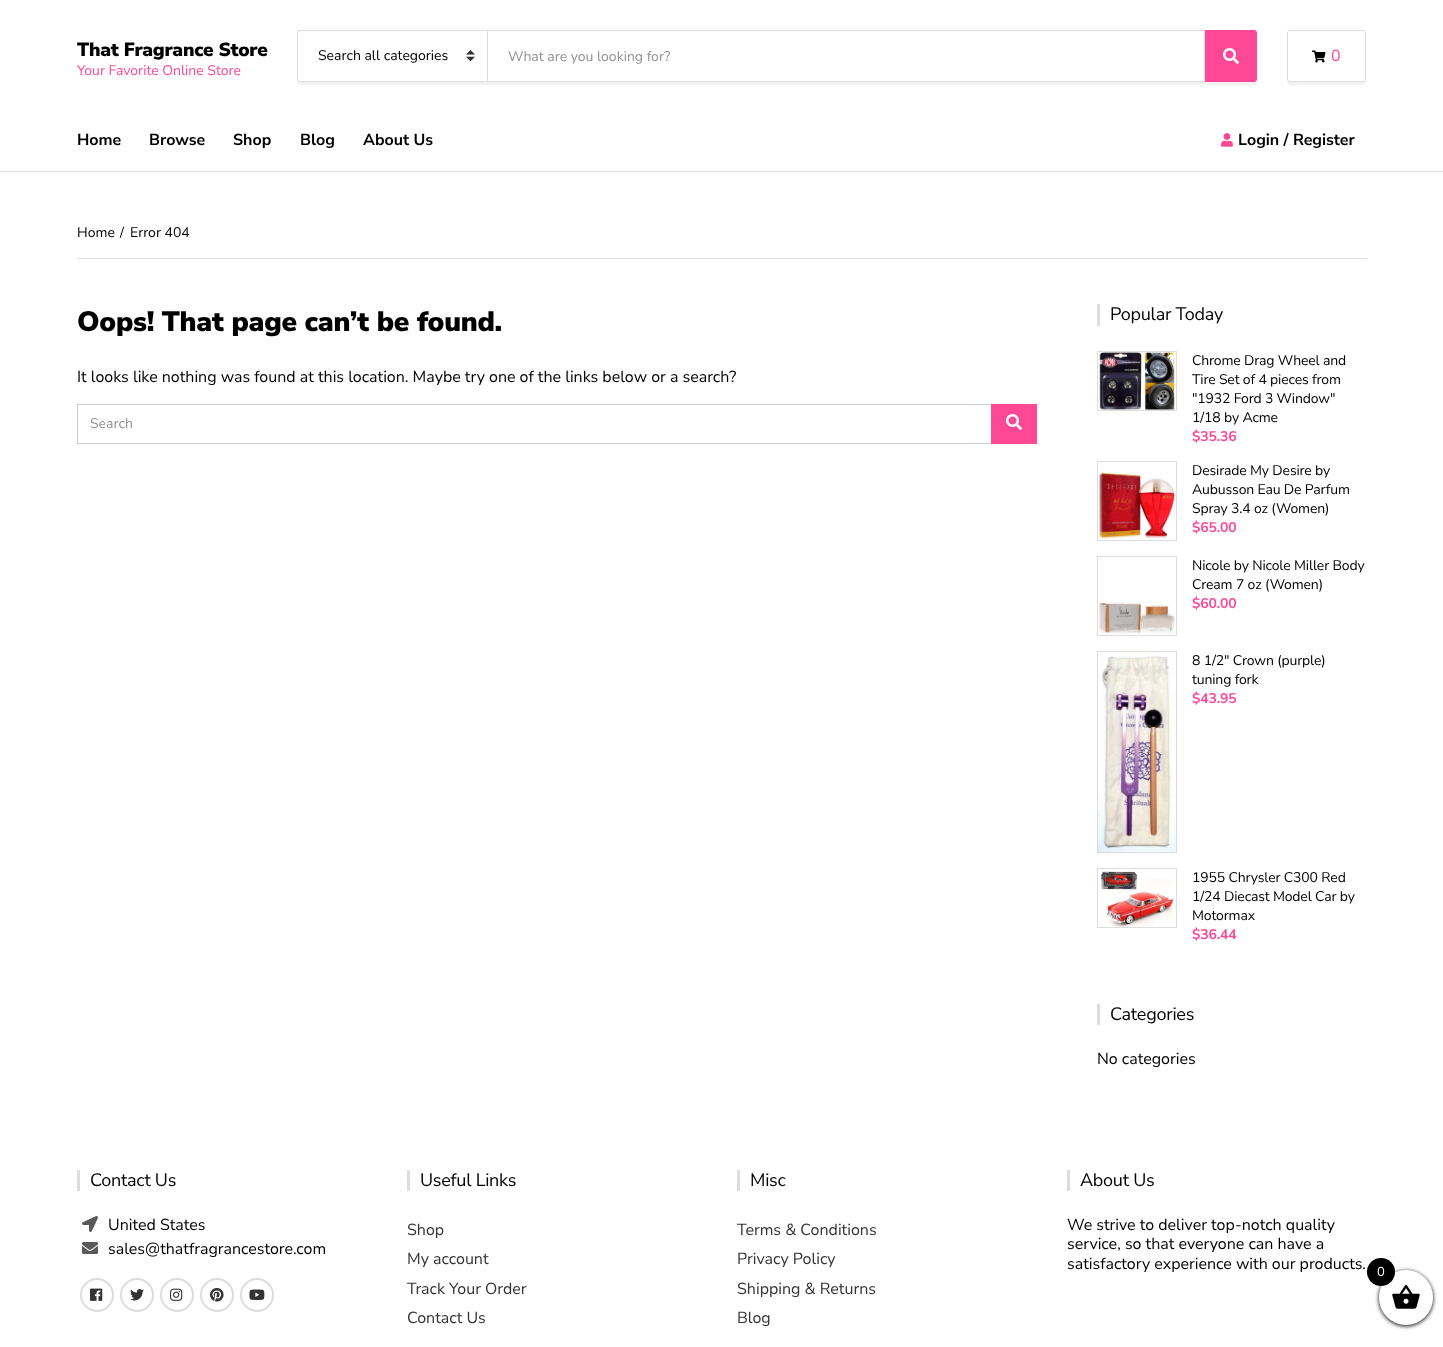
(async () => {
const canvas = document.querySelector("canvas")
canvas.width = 1443
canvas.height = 1347
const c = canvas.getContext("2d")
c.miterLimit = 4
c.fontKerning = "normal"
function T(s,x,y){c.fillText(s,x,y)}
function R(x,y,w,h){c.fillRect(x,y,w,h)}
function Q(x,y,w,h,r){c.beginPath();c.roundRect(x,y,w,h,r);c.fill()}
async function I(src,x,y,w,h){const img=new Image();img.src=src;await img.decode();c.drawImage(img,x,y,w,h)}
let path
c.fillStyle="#fff"
R(0,0,1443,1347)
c.letterSpacing="-0.25px"
c.font="900 19px Nunito Sans"
c.fillStyle="#000"
T("That Fragrance Store",77,56)
c.letterSpacing="0px"
c.font="14px Nunito Sans"
c.fillStyle="#fc4895"
T("Your Favorite Online Store",77,75)
c.fillStyle="#f2f2f2"
R(297,82,960,3)
await I("1.png",466,50,9,12)
c.fillStyle="#ddd"
path = new Path2D("M300 30h187v52h-187c-2 0-3-1-3-3v-46c0-2 1-3 3-3zm0 1h187v50h-187c-1 0-2-1-2-2v-46c0-1 1-2 2-2z")
c.fill(path,"evenodd")
c.fillStyle="#000"
T("Search all categories",318,60)
c.strokeStyle="#ddd"
c.strokeRect(487.5,30.5,717,51)
c.fillStyle="#919191"
T("What are you looking for?",508,61)
c.fillStyle="#fc4895"
c.beginPath()
c.roundRect(1205,30,52,52,[0,3,3,0])
c.fill()
await I("2.png",1223,48,16,16)
c.fillStyle="#f2f2f2"
path = new Path2D("M1287 79c0 9 5 6 15 6h49c10 0 15 3 15-6c0 2-1 3-3 3h-73c-2 0-3-1-3-3z")
c.fill(path)
c.beginPath()
c.roundRect(1287.5,30.5,78,51,2.5)
c.stroke()
await I("3.png",1312,50,14,13)
c.font="16px Nunito Sans"
c.fillStyle="#fc4895"
T("0",1331,61)
c.fillStyle="#ddd"
R(0,171,1443,1)
c.font="bold 16px Nunito Sans"
c.fillStyle="#000"
T("Home",77,145)
T("Browse",149,145)
T("Shop",233,145)
T("Blog",300,145)
T("About Us",363,145)
await I("4.png",1221,133,12,14)
T("Login / Register",1238,145)
c.fillStyle="#ddd"
R(77,258,1290,1)
c.font="14px Nunito Sans"
c.fillStyle="#000"
T("Home",77,237)
T("/",120,237)
T("Error 404",130,237)
c.letterSpacing="-0.25px"
c.font="900 28px Nunito Sans"
T("Oops! That page can’t be found.",77,331)
c.letterSpacing="0px"
c.font="16px Nunito Sans"
T("It looks like nothing was found at this location. Maybe try one of the links below or a search?",77,382)
c.strokeStyle="#ccc"
c.strokeRect(77.5,404.5,959,39)
c.font="14px Nunito Sans"
c.fillStyle="#919191"
T("Search",90,428)
c.fillStyle="#fc4895"
R(991,404,46,40)
await I("2.png",1006,414,16,16)
c.fillStyle="#ddd"
R(1097,304,3,22)
c.letterSpacing="-0.25px"
c.font="18px Nunito Sans"
c.fillStyle="#000"
T("Popular Today",1110,320)
c.strokeStyle="#ddd"
c.strokeRect(1097.5,351.5,79,59)
await I("5.png",1099,352,76,58)
c.letterSpacing="-0.15px"
c.font="14px Nunito Sans"
T("Chrome Drag Wheel and",1192,365)
T("Tire Set of 4 pieces from",1192,384)
T("\"1932 Ford 3 Window\"",1192,403)
T("1/18 by Acme",1192,422)
c.font="bold 14px Nunito Sans"
c.fillStyle="#fc4895"
T("$35.36",1192,441)
c.strokeRect(1097.5,461.5,79,79)
await I("6.png",1099,472,76,67)
c.font="14px Nunito Sans"
c.fillStyle="#000"
T("Desirade My Desire by",1192,475)
T("Aubusson Eau De Parfum",1192,494)
T("Spray 3.4 oz (Women)",1192,513)
c.font="bold 14px Nunito Sans"
c.fillStyle="#fc4895"
T("$65.00",1192,532)
c.strokeRect(1097.5,556.5,79,79)
await I("7.png",1099,602,76,32)
c.font="14px Nunito Sans"
c.fillStyle="#000"
T("Nicole by Nicole Miller Body",1192,570)
T("Cream 7 oz (Women)",1192,589)
c.font="bold 14px Nunito Sans"
c.fillStyle="#fc4895"
T("$60.00",1192,608)
c.strokeRect(1097.5,651.5,79,201)
await I("8.png",1098,652,78,200)
c.font="14px Nunito Sans"
c.fillStyle="#000"
T("8 1/2\" Crown (purple)",1192,665)
T("tuning fork",1192,684)
c.font="bold 14px Nunito Sans"
c.fillStyle="#fc4895"
T("$43.95",1192,703)
c.strokeRect(1097.5,868.5,79,59)
await I("9.png",1101,871,75,56)
c.font="14px Nunito Sans"
c.fillStyle="#000"
T("1955 Chrysler C300 Red",1192,882)
T("1/24 Diecast Model Car by",1192,901)
T("Motormax",1192,920)
c.font="bold 14px Nunito Sans"
c.fillStyle="#fc4895"
T("$36.44",1192,939)
c.fillStyle="#ddd"
R(1097,1004,3,21)
c.letterSpacing="-0.25px"
c.font="18px Nunito Sans"
c.fillStyle="#000"
T("Categories",1110,1020)
c.letterSpacing="0px"
c.font="16px Nunito Sans"
T("No categories",1097,1064)
c.fillStyle="#ddd"
R(77,1170,3,21)
c.letterSpacing="-0.25px"
c.font="18px Nunito Sans"
c.fillStyle="#000"
T("Contact Us",90,1186)
await I("10.png",82,1216,16,16)
c.letterSpacing="0px"
c.font="16px Nunito Sans"
T("United States",108,1230)
await I("11.png",82,1242,16,12)
T("sales@thatfragrancestore.com",108,1254)
c.beginPath()
c.arc(97,1295,16,0,7)
c.lineWidth=2
c.stroke()
await I("12.png",90,1288,13,13)
c.beginPath()
c.arc(137,1295,16,0,7)
c.stroke()
await I("13.png",130,1289,14,12)
c.beginPath()
c.arc(177,1295,16,0,7)
c.stroke()
await I("14.png",170,1288,13,13)
c.beginPath()
c.arc(217,1295,16,0,7)
c.stroke()
await I("15.png",210,1288,14,14)
c.beginPath()
c.arc(257,1295,16,0,7)
c.stroke()
await I("16.png",249,1289,16,11)
c.fillStyle="#ddd"
R(407,1170,3,21)
c.letterSpacing="-0.25px"
c.font="18px Nunito Sans"
c.fillStyle="#000"
T("Useful Links",420,1186)
c.letterSpacing="0px"
c.font="16px Nunito Sans"
c.fillStyle="#333"
T("Shop",407,1235)
T("My account",407,1264)
T("Track Your Order",407,1294)
T("Contact Us",407,1323)
c.fillStyle="#ddd"
R(737,1170,3,21)
c.letterSpacing="-0.25px"
c.font="18px Nunito Sans"
c.fillStyle="#000"
T("Misc",750,1186)
c.letterSpacing="0px"
c.font="16px Nunito Sans"
c.fillStyle="#333"
T("Terms & Conditions",737,1235)
T("Privacy Policy",737,1264)
T("Shipping & Returns",737,1294)
T("Blog",737,1323)
c.fillStyle="#ddd"
R(1067,1170,3,21)
c.letterSpacing="-0.25px"
c.font="18px Nunito Sans"
c.fillStyle="#000"
T("About Us",1080,1186)
c.letterSpacing="0px"
c.font="16px Nunito Sans"
T("We strive to deliver top-notch quality",1067,1230)
T("service, so that everyone can have a",1067,1249)
T("satisfactory experience with our products.",1067,1269)
c.filter="blur(2px)"
c.beginPath()
c.roundRect(1379,1271,54,55,27)
c.fill()
c.filter="none"
c.fillStyle="#fff"
Q(1379,1270,54,55,27)
c.fillStyle="#000"
c.beginPath()
c.arc(1381,1272,14,0,7)
c.fill()
c.font="13px Nunito Sans"
c.fillStyle="#fff"
T("0",1377,1276)
await I("17.png",1392,1285,28,24)
})()
